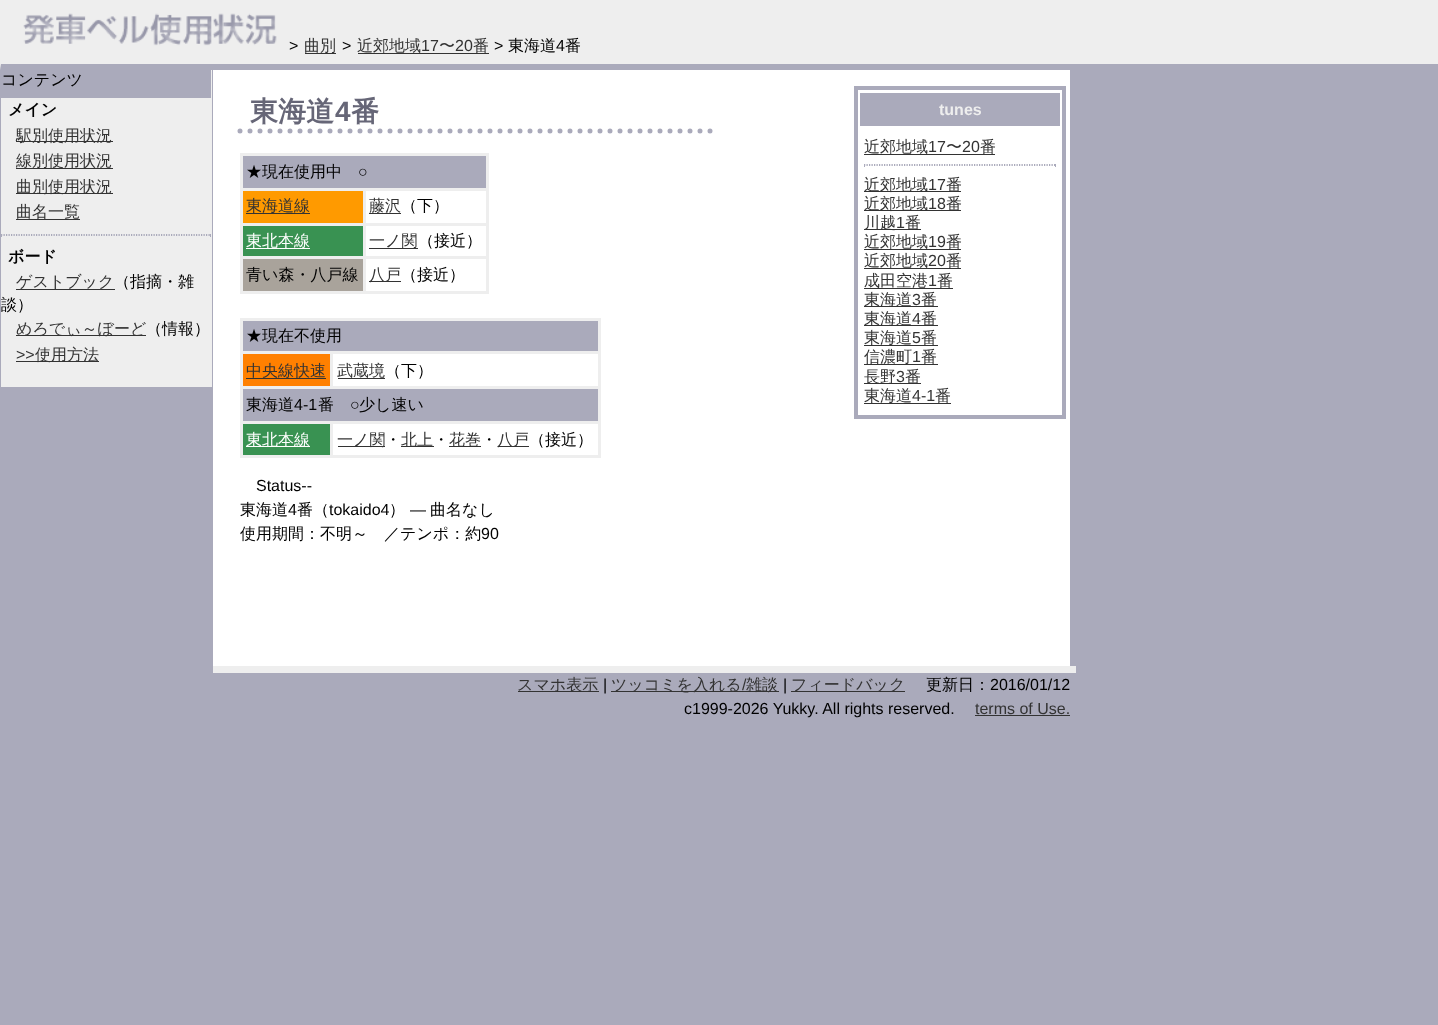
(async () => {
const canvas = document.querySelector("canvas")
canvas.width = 1438
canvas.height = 1025
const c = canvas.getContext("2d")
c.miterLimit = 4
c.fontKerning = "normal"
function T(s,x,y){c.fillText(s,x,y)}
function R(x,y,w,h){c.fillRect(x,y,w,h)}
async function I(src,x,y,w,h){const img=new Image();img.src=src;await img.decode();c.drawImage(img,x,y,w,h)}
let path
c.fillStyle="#aab"
R(0,0,1438,1025)
c.fillStyle="#eee"
R(1,1,1437,63)
R(0,0,1438,1)
path = new Path2D("M0 70v-70l1 1v63z")
c.fill(path)
await I("1.png",23,13,254,33)
c.font="16px Liberation Sans"
c.fillStyle="#000"
T(">",289,51)
c.fillStyle="#333"
R(305,53,31,1)
c.font="500 16px WenQuanYi Zen Hei"
T("曲別",304,51)
c.font="16px Liberation Sans"
c.fillStyle="#000"
T(">",342,51)
c.fillStyle="#333"
R(358,53,131,1)
c.font="500 16px WenQuanYi Zen Hei"
T("近郊地域",357,51)
c.font="16px Liberation Sans"
T("17",421,51)
c.font="500 16px WenQuanYi Zen Hei"
T("〜",439,51)
c.font="16px Liberation Sans"
T("20",455,51)
c.font="500 16px WenQuanYi Zen Hei"
T("番",473,51)
c.font="16px Liberation Sans"
c.fillStyle="#000"
T(">",494,51)
c.font="500 16px WenQuanYi Zen Hei"
T("東海道",508,51)
c.font="16px Liberation Sans"
T("4",556,51)
c.font="500 16px WenQuanYi Zen Hei"
T("番",565,51)
c.fillStyle="#eee"
R(1,70,211,317)
c.fillStyle="#aab"
R(1,70,210,28)
c.fillStyle="#000"
T("コンテンツ",1,85)
c.font="bold 16px WenQuanYi Zen Hei"
T("メイン",8,115)
c.fillStyle="#333"
R(16,141,97,1)
c.font="500 16px WenQuanYi Zen Hei"
T("駅別使用状況",16,141)
R(16,168,97,1)
T("線別使用状況",16,166)
R(16,193,97,1)
T("曲別使用状況",16,192)
T("曲名一覧",16,217)
R(16,219,64,1)
path = new Path2D("M1 234.5h210")
c.strokeStyle="#aab"
c.lineWidth=1.2
c.setLineDash([1.25,1.25])
c.stroke(path)
c.fillStyle="#aab"
R(210,234,1,3)
path = new Path2D("M1 235.5h210")
c.stroke(path)
R(1,234,1,3)
c.font="bold 16px WenQuanYi Zen Hei"
c.fillStyle="#000"
T("ボード",8,262)
c.fillStyle="#333"
R(16,289,99,1)
c.font="500 16px WenQuanYi Zen Hei"
T("ゲストブック",16,287)
c.fillStyle="#000"
T("（指摘・雑",114,287)
T("談）",1,310)
c.fillStyle="#333"
R(16,335,130,1)
T("めろでぃ～ぼーど",16,334)
c.fillStyle="#000"
T("（情報）",146,334)
c.font="16px Liberation Sans"
c.fillStyle="#333"
T(">>",16,360)
R(16,361,83,1)
c.font="500 16px WenQuanYi Zen Hei"
T("使用方法",35,360)
c.fillStyle="#fff"
R(213,70,857,596)
path = new Path2D("M240 131h472.5")
c.lineWidth=5
c.lineCap="round"
c.setLineDash([0,10])
c.stroke(path)
c.font="bold 28px WenQuanYi Zen Hei"
c.fillStyle="#667"
T("東海道",250,121)
c.font="bold 28px Liberation Sans"
T("4",335,121)
c.font="bold 28px WenQuanYi Zen Hei"
T("番",351,121)
c.fillStyle="#aab"
R(243,156,243,32)
c.fillStyle="#eee"
R(240,153,249,3)
R(363,188,126,3)
R(363,223,126,3)
R(363,256,126,3)
R(486,256,3,38)
R(486,223,3,36)
R(486,188,3,37)
R(486,153,3,37)
R(363,291,126,3)
R(363,256,3,38)
R(240,256,125,3)
R(363,223,3,36)
R(240,223,125,3)
R(363,188,3,37)
R(240,188,125,3)
R(240,291,125,3)
R(240,256,3,38)
R(240,223,3,36)
R(240,188,3,37)
R(240,153,3,37)
c.font="500 16px WenQuanYi Zen Hei"
c.fillStyle="#000"
T("★現在使用中",246,177)
c.font="16px Liberation Sans"
T("○",358,177)
c.fillStyle="#ff9a00"
R(243,191,120,32)
c.font="500 16px WenQuanYi Zen Hei"
c.fillStyle="#333"
T("東海道線",246,211)
R(246,213,64,1)
T("藤沢",369,211)
R(369,213,32,1)
c.fillStyle="#000"
T("（下）",401,211)
c.fillStyle="#399252"
R(243,226,120,30)
c.fillStyle="#fff"
T("東北本線",246,246)
R(246,248,64,1)
c.fillStyle="#333"
R(369,248,49,1)
T("一ノ関",369,246)
c.fillStyle="#000"
T("（接近）",418,246)
c.fillStyle="#a9a39b"
R(243,259,120,32)
c.fillStyle="#000"
T("青い森・八戸線",246,280)
c.fillStyle="#333"
R(369,281,32,1)
T("八戸",369,280)
c.fillStyle="#000"
T("（接近）",401,280)
c.fillStyle="#aab"
R(243,321,355,30)
c.fillStyle="#eee"
R(240,318,360,3)
R(330,351,270,3)
R(240,386,360,3)
R(330,421,270,3)
R(598,421,3,37)
R(598,386,3,38)
R(598,351,3,38)
R(598,318,3,36)
R(330,351,3,38)
R(240,351,93,3)
R(330,455,270,3)
R(330,421,3,37)
R(240,421,93,3)
R(240,455,93,3)
R(240,421,3,37)
R(240,386,3,38)
R(240,351,3,38)
R(240,318,3,36)
c.fillStyle="#000"
T("★現在不使用",246,341)
c.fillStyle="#ff8000"
R(243,354,87,32)
c.fillStyle="#333"
R(246,378,80,1)
T("中央線快速",246,376)
T("武蔵境",337,376)
R(338,378,47,1)
c.fillStyle="#000"
T("（下）",385,376)
c.fillStyle="#aab"
R(243,389,355,32)
c.fillStyle="#000"
T("東海道",246,410)
c.font="16px Liberation Sans"
T("4-1",294,410)
c.font="500 16px WenQuanYi Zen Hei"
T("番",318,410)
c.font="16px Liberation Sans"
T("○",350,410)
c.font="500 16px WenQuanYi Zen Hei"
T("少し速い",359,410)
c.fillStyle="#399252"
R(243,424,87,31)
c.fillStyle="#fff"
R(246,446,64,1)
T("東北本線",246,445)
c.fillStyle="#333"
R(338,446,47,1)
T("一ノ関",337,445)
c.fillStyle="#000"
T("・",385,445)
c.fillStyle="#333"
R(401,446,33,1)
T("北上",401,445)
c.fillStyle="#000"
T("・",433,445)
c.fillStyle="#333"
R(449,446,32,1)
T("花巻",449,445)
c.fillStyle="#000"
T("・",481,445)
c.fillStyle="#333"
R(498,446,31,1)
T("八戸",497,445)
c.fillStyle="#000"
T("（接近）",529,445)
c.font="16px Liberation Sans"
T("Status--",256,491)
c.font="500 16px WenQuanYi Zen Hei"
T("東海道",240,515)
c.font="16px Liberation Sans"
T("4",288,515)
c.font="500 16px WenQuanYi Zen Hei"
T("番（",297,515)
c.font="16px Liberation Sans"
T("tokaido4",329,515)
c.font="500 16px WenQuanYi Zen Hei"
T("）",389,515)
c.font="16px Liberation Sans"
T("―",410,515)
c.font="500 16px WenQuanYi Zen Hei"
T("曲名なし",430,515)
T("使用期間：不明～　／テンポ：約",240,539)
c.font="16px Liberation Sans"
T("90",481,539)
c.lineWidth=4
c.setLineDash([])
c.strokeRect(856,88,208,329)
c.fillStyle="#aab"
R(860,93,200,33)
c.font="bold 16px Liberation Sans"
c.fillStyle="#eee"
T("tunes",939,115)
c.fillStyle="#333"
R(864,154,131,1)
c.font="500 16px WenQuanYi Zen Hei"
T("近郊地域",864,152)
c.font="16px Liberation Sans"
T("17",928,152)
c.font="500 16px WenQuanYi Zen Hei"
T("〜",946,152)
c.font="16px Liberation Sans"
T("20",962,152)
c.font="500 16px WenQuanYi Zen Hei"
T("番",980,152)
path = new Path2D("M864 164.5h192")
c.lineWidth=1.2
c.lineCap="butt"
c.setLineDash([1.25,1.25])
c.stroke(path)
c.fillStyle="#aab"
R(1055,164,1,3)
path = new Path2D("M864 165.5h192")
c.stroke(path)
R(864,164,1,3)
c.fillStyle="#333"
R(864,191,97,1)
T("近郊地域",864,190)
c.font="16px Liberation Sans"
T("17",928,190)
c.font="500 16px WenQuanYi Zen Hei"
T("番",946,190)
R(864,210,97,1)
T("近郊地域",864,209)
c.font="16px Liberation Sans"
T("18",928,209)
c.font="500 16px WenQuanYi Zen Hei"
T("番",946,209)
R(864,229,57,1)
T("川越",864,228)
c.font="16px Liberation Sans"
T("1",896,228)
c.font="500 16px WenQuanYi Zen Hei"
T("番",905,228)
R(864,249,97,1)
T("近郊地域",864,247)
c.font="16px Liberation Sans"
T("19",928,247)
c.font="500 16px WenQuanYi Zen Hei"
T("番",946,247)
R(864,268,97,1)
T("近郊地域",864,266)
c.font="16px Liberation Sans"
T("20",928,266)
c.font="500 16px WenQuanYi Zen Hei"
T("番",946,266)
T("成田空港",864,286)
c.font="16px Liberation Sans"
T("1",928,286)
R(864,288,89,1)
c.font="500 16px WenQuanYi Zen Hei"
T("番",937,286)
R(864,306,74,1)
T("東海道",864,305)
c.font="16px Liberation Sans"
T("3",912,305)
c.font="500 16px WenQuanYi Zen Hei"
T("番",921,305)
R(864,325,74,1)
T("東海道",864,324)
c.font="16px Liberation Sans"
T("4",912,324)
c.font="500 16px WenQuanYi Zen Hei"
T("番",921,324)
T("東海道",864,343)
c.font="16px Liberation Sans"
T("5",912,343)
R(864,345,74,1)
c.font="500 16px WenQuanYi Zen Hei"
T("番",921,343)
R(864,364,74,1)
T("信濃町",864,362)
c.font="16px Liberation Sans"
T("1",912,362)
c.font="500 16px WenQuanYi Zen Hei"
T("番",921,362)
R(864,383,57,1)
T("長野",864,382)
c.font="16px Liberation Sans"
T("3",896,382)
c.font="500 16px WenQuanYi Zen Hei"
T("番",905,382)
T("東海道",864,401)
c.font="16px Liberation Sans"
T("4-1",912,401)
R(864,403,87,1)
c.font="500 16px WenQuanYi Zen Hei"
T("番",935,401)
c.fillStyle="#eee"
R(213,666,863,7)
c.fillStyle="#333"
R(518,691,81,1)
T("スマホ表示",517,690)
c.font="16px Liberation Sans"
c.fillStyle="#000"
T("|",603,690)
c.fillStyle="#333"
R(611,691,168,1)
c.font="500 16px WenQuanYi Zen Hei"
T("ツッコミを入れる",611,690)
c.font="16px Liberation Sans"
T("/",742,690)
c.font="500 16px WenQuanYi Zen Hei"
T("雑談",746,690)
c.font="16px Liberation Sans"
c.fillStyle="#000"
T("|",783,690)
c.fillStyle="#333"
R(791,691,114,1)
c.font="500 16px WenQuanYi Zen Hei"
T("フィードバック",791,690)
c.fillStyle="#000"
T("更新日：",926,690)
c.font="16px Liberation Sans"
T("2016/01/12",990,690)
T("c1999-2026 Yukky. All rights reserved.",684,714)
c.fillStyle="#333"
T("terms of Use.",975,714)
R(975,715,95,1)
})()
